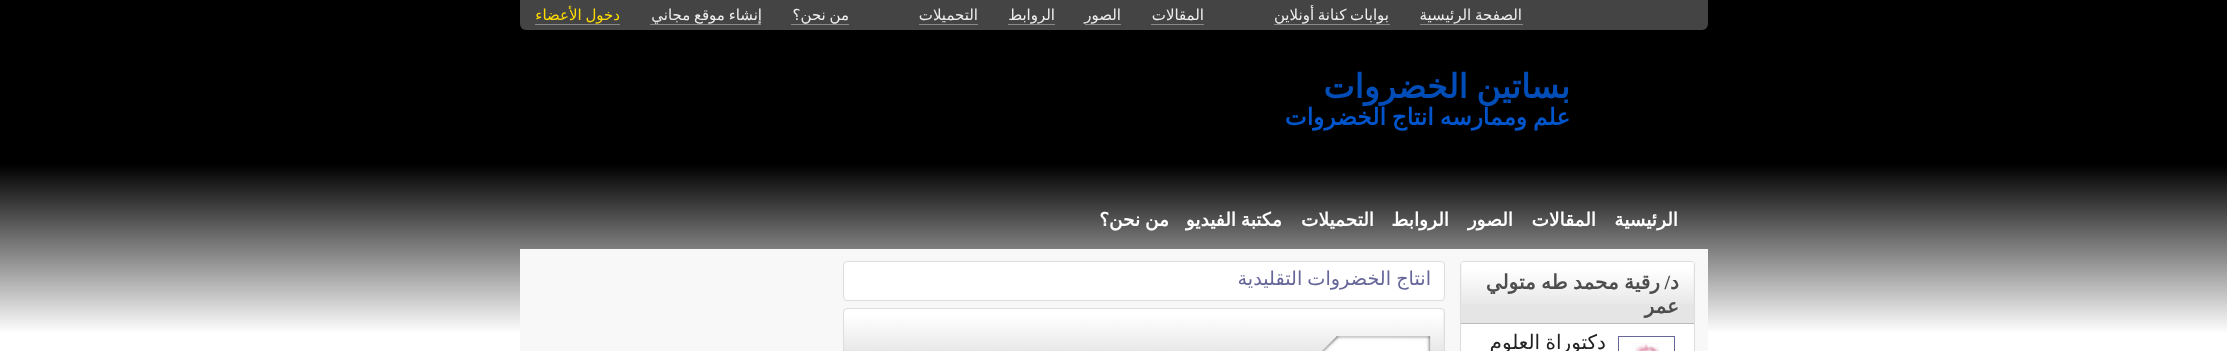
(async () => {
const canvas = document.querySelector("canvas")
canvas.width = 2227
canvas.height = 351
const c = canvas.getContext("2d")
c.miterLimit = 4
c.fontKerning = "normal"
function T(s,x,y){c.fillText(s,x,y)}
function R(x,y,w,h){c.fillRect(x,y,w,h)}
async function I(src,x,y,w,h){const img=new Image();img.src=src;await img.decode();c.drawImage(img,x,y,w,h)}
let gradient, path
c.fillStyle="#fff"
R(0,0,2227,351)
gradient = c.createLinearGradient(0,351,0,0)
gradient.addColorStop(.05,"#fff")
gradient.addColorStop(.53,"#000")
c.fillStyle = gradient
R(0,0,2227,332)
c.fillStyle="#444"
c.beginPath()
c.roundRect(520,0,1188,30,[0,0,6,6])
c.fill()
c.wordSpacing="-1px"
c.direction="rtl"
c.font="15px DejaVu Sans"
c.fillStyle="#eee"
T("الصفحة الرئيسية",1522,20)
c.fillStyle="#888"
R(1420,24,103,1)
c.fillStyle="#eee"
T("بوابات كنانة أونلاين",1389,20)
c.fillStyle="#888"
R(1274,24,116,1)
c.wordSpacing="0px"
c.fillStyle="#eee"
T("المقالات",1204,20)
c.fillStyle="#888"
R(1151,24,53,1)
c.fillStyle="#eee"
T("الصور",1121,20)
c.fillStyle="#888"
R(1085,24,36,1)
c.fillStyle="#eee"
T("الروابط",1055,20)
c.fillStyle="#888"
R(1008,24,47,1)
c.fillStyle="#eee"
T("التحميلات",978,20)
c.fillStyle="#888"
R(919,24,59,1)
c.wordSpacing="-1px"
c.fillStyle="#eee"
T("من نحن؟",849,20)
c.fillStyle="#888"
R(791,24,58,1)
c.fillStyle="#eee"
T("إنشاء موقع مجاني",762,20)
c.fillStyle="#888"
R(650,24,111,1)
c.fillStyle="#fd0"
T("دخول الأعضاء",620,20)
c.fillStyle="#888"
R(535,24,85,1)
c.wordSpacing="-2px"
c.font="bold 33.25px DejaVu Sans"
c.fillStyle="#004db8"
T("بساتين الخضروات",1570,98)
c.wordSpacing="-1.5px"
c.font="bold 23.25px DejaVu Sans"
c.fillStyle="#05c"
T("علم وممارسه انتاج الخضروات",1570,125)
c.wordSpacing="0px"
c.font="bold 18.5px DejaVu Sans"
c.fillStyle="#fff"
T("الرئيسية",1678,226)
T("المقالات",1596,226)
T("الصور",1513,226)
T("الروابط",1449,226)
T("التحميلات",1374,226)
c.wordSpacing="-1px"
T("مكتبة الفيديو",1282,226)
T("من نحن؟",1169,226)
c.fillStyle="#f8f8f8"
R(520,249,1188,102)
c.fillStyle="#fff"
c.beginPath()
c.roundRect(1460.5,261.5,234,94,3.5)
c.fill()
c.strokeStyle="#ddd"
c.stroke()
c.fillStyle="#e5e5e5"
R(1461,263,233,60)
await I("1.png",1461,262,233,42)
c.fillStyle="#bbb"
R(1461,323,233,1)
c.wordSpacing="0px"
c.font="bold 20px DejaVu Sans"
c.fillStyle="#4d4d4d"
T("د",1679,289)
c.font="bold 20px Liberation Serif"
T("/",1670,289)
c.wordSpacing="-1px"
c.font="bold 20px DejaVu Sans"
T("رقية محمد طه متولي",1660,289)
c.wordSpacing="0px"
T("عمر",1679,313)
c.strokeStyle="#669"
c.strokeRect(1618.5,336.5,56,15)
await I("2.png",1635,343,24,8)
c.wordSpacing="-1px"
c.font="20px DejaVu Sans"
c.fillStyle="#222"
T("دكتوراة العلوم",1606,349)
c.fillStyle="#fff"
c.beginPath()
c.roundRect(843.5,261.5,601,39,3.5)
c.fill()
c.strokeStyle="#ddd"
c.stroke()
c.font="19.25px DejaVu Sans"
c.fillStyle="#669"
T("انتاج الخضروات التقليدية",1431,285)
c.fillStyle="#fff"
c.beginPath()
c.roundRect(843.5,308.5,601,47,3.5)
c.fill()
c.stroke()
c.fillStyle="#e5e5e5"
path = new Path2D("M850 309h588c3.5 0 6 2.5 6 6v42h-600v-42c0-3.5 2.5-6 6-6z")
c.fill(path)
await I("3.png",844,309,600,41)
await I("4.png",1322,336,109,15)
})()
